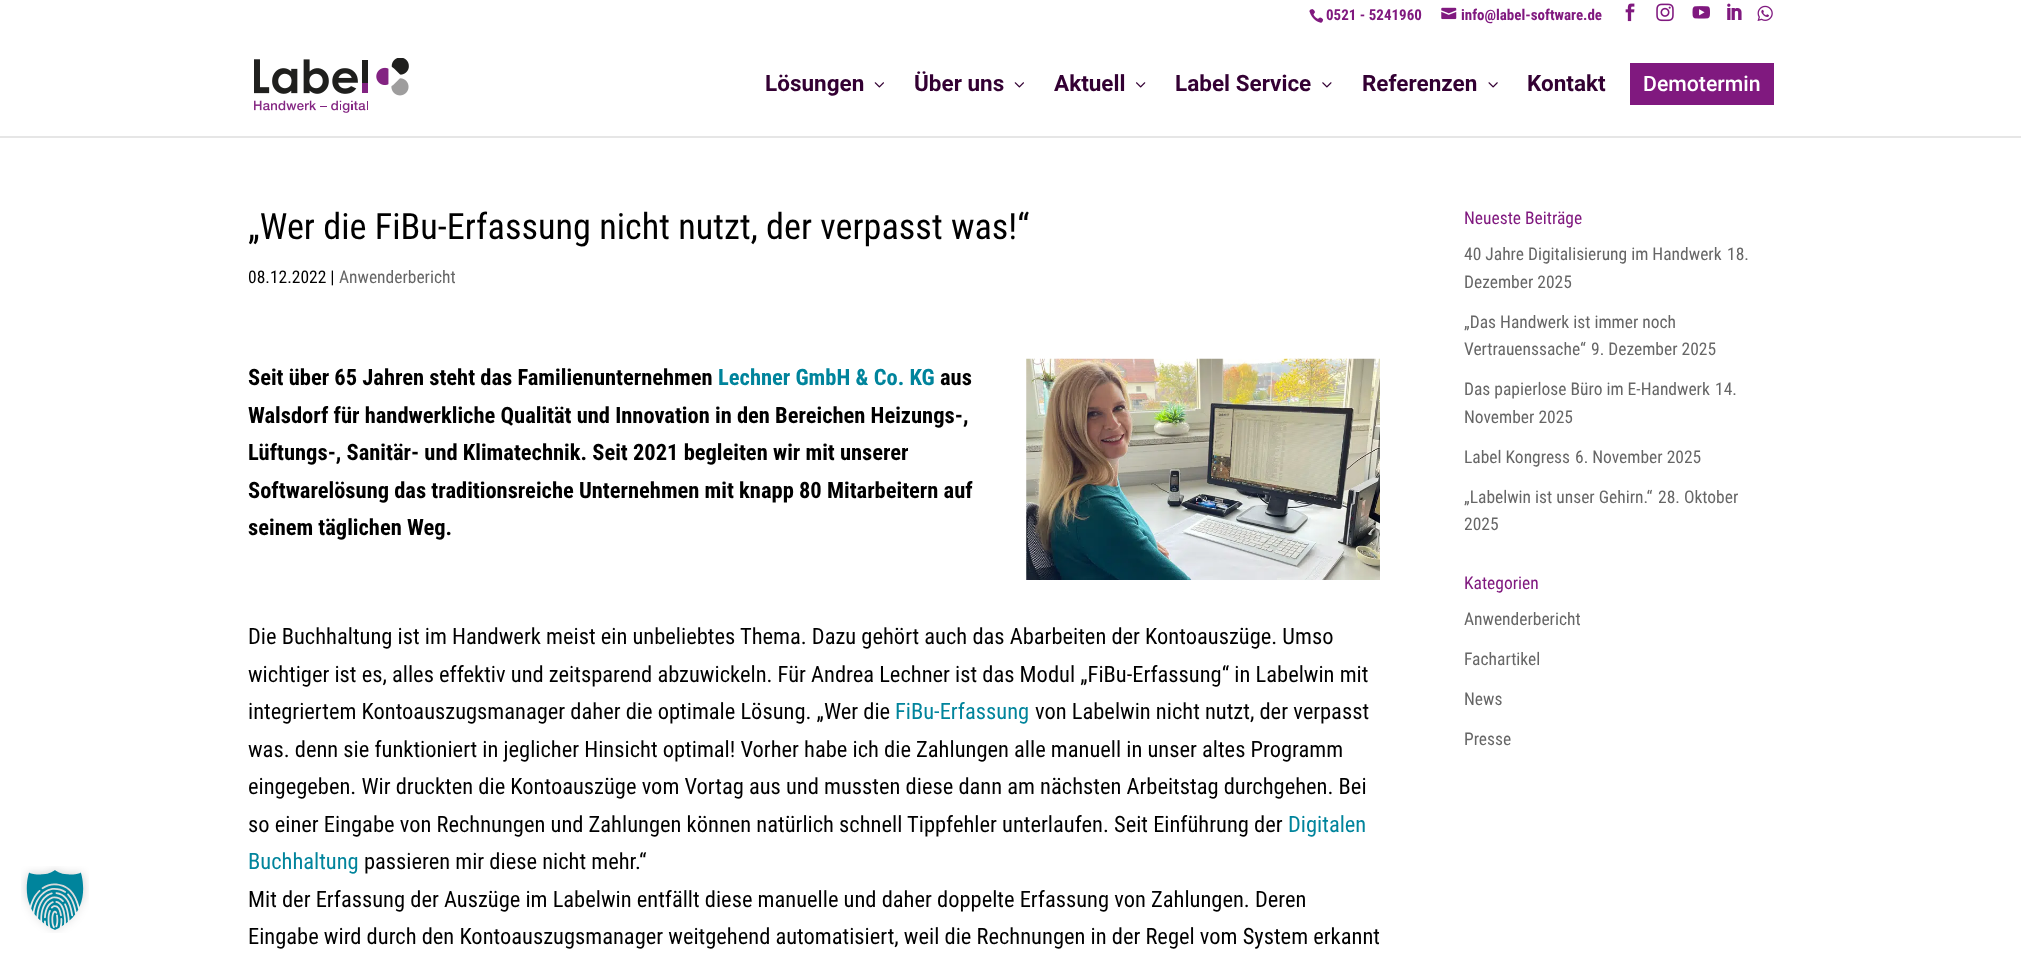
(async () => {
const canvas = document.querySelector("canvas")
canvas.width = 2021
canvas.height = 955
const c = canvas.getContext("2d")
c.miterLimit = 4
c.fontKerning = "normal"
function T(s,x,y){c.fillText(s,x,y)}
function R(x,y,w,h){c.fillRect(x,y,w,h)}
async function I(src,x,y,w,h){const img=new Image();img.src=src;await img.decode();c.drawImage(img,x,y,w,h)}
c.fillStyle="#fff"
R(0,0,2021,955)
await I("1.png",21,866,68,67)
await I("2.png",1309,9,15,14)
c.font="bold 15px Roboto Condensed"
c.fillStyle="#80197f"
T("0521 - 5241960",1326,20)
await I("3.png",1441,7,16,13)
T("info@label-software.de",1461,20)
await I("4.png",1625,3,10,19)
await I("5.png",1656,3,18,19)
await I("6.png",1692,6,18,13)
await I("7.png",1727,3,15,17)
await I("8.png",1757,5,16,16)
c.fillStyle="#e6e6e6"
R(0,136,2021,2)
await I("9.png",254,58,155,55)
c.font="bold 22.5px Roboto"
c.fillStyle="#303"
T("Lösungen",765,91)
await I("10.png",874,82,10,6)
T("Über uns",914,91)
await I("10.png",1014,82,10,6)
T("Aktuell",1054,91)
await I("11.png",1136,82,10,6)
T("Label Service",1175,91)
await I("12.png",1322,82,10,6)
T("Referenzen",1362,91)
await I("13.png",1488,82,10,6)
T("Kontakt",1527,91)
c.fillStyle="#80197f"
R(1630,63,144,42)
c.font="500 21.25px Roboto"
c.fillStyle="#fff"
T("Demotermin",1643,91)
c.font="36.25px Roboto Condensed"
c.fillStyle="#000"
T("„Wer die FiBu-Erfassung nicht nutzt, der verpasst was!“",248,239)
c.font="17.5px Roboto Condensed"
T("08.12.2022 |",248,283)
c.fillStyle="#666"
T("Anwenderbericht",339,283)
c.font="bold 22.5px Roboto Condensed"
c.fillStyle="#000"
T("Seit über 65 Jahren steht das Familienunternehmen",248,385)
c.fillStyle="#00849c"
T("Lechner GmbH & Co. KG",718,385)
c.fillStyle="#000"
T("aus",940,385)
T("Walsdorf für handwerkliche Qualität und Innovation in den Bereichen Heizungs-,",248,423)
T("Lüftungs-, Sanitär- und Klimatechnik. Seit 2021 begleiten wir mit unserer",248,460)
T("Softwarelösung das traditionsreiche Unternehmen mit knapp 80 Mitarbeitern auf",248,498)
T("seinem täglichen Weg.",248,535)
await I("14.png",1026,358,354,222)
c.font="22.5px Roboto Condensed"
T("Die Buchhaltung ist im Handwerk meist ein unbeliebtes Thema. Dazu gehört auch das Abarbeiten der Kontoauszüge. Umso",248,644)
T("wichtiger ist es, alles effektiv und zeitsparend abzuwickeln. Für Andrea Lechner ist das Modul „FiBu-Erfassung“ in Labelwin mit",248,682)
T("integriertem Kontoauszugsmanager daher die optimale Lösung. „Wer die",248,719)
c.fillStyle="#00849c"
T("FiBu-Erfassung",895,719)
c.fillStyle="#000"
T("von Labelwin nicht nutzt, der verpasst",1035,719)
T("was. denn sie funktioniert in jeglicher Hinsicht optimal! Vorher habe ich die Zahlungen alle manuell in unser altes Programm",248,757)
T("eingegeben. Wir druckten die Kontoauszüge vom Vortag aus und mussten diese dann am nächsten Arbeitstag durchgehen. Bei",248,794)
T("so einer Eingabe von Rechnungen und Zahlungen können natürlich schnell Tippfehler unterlaufen. Seit Einführung der",248,832)
c.fillStyle="#00849c"
T("Digitalen",1288,832)
T("Buchhaltung",248,869)
c.fillStyle="#000"
T("passieren mir diese nicht mehr.“",364,869)
T("Mit der Erfassung der Auszüge im Labelwin entfällt diese manuelle und daher doppelte Erfassung von Zahlungen. Deren",248,907)
T("Eingabe wird durch den Kontoauszugsmanager weitgehend automatisiert, weil die Rechnungen in der Regel vom System erkannt",248,944)
c.font="17.5px Roboto Condensed"
c.fillStyle="#80197f"
T("Neueste Beiträge",1464,224)
c.fillStyle="#666"
T("40 Jahre Digitalisierung im Handwerk",1464,260)
T("18.",1727,260)
T("Dezember 2025",1464,288)
T("„Das Handwerk ist immer noch",1464,328)
T("Vertrauenssache“",1464,355)
T("9. Dezember 2025",1591,355)
T("Das papierlose Büro im E-Handwerk",1464,395)
T("14.",1715,395)
T("November 2025",1464,423)
T("Label Kongress",1464,463)
T("6. November 2025",1575,463)
T("„Labelwin ist unser Gehirn.“",1464,503)
T("28. Oktober",1658,503)
T("2025",1464,530)
c.fillStyle="#80197f"
T("Kategorien",1464,589)
c.fillStyle="#666"
T("Anwenderbericht",1464,625)
T("Fachartikel",1464,665)
T("News",1464,705)
T("Presse",1464,745)
})()
